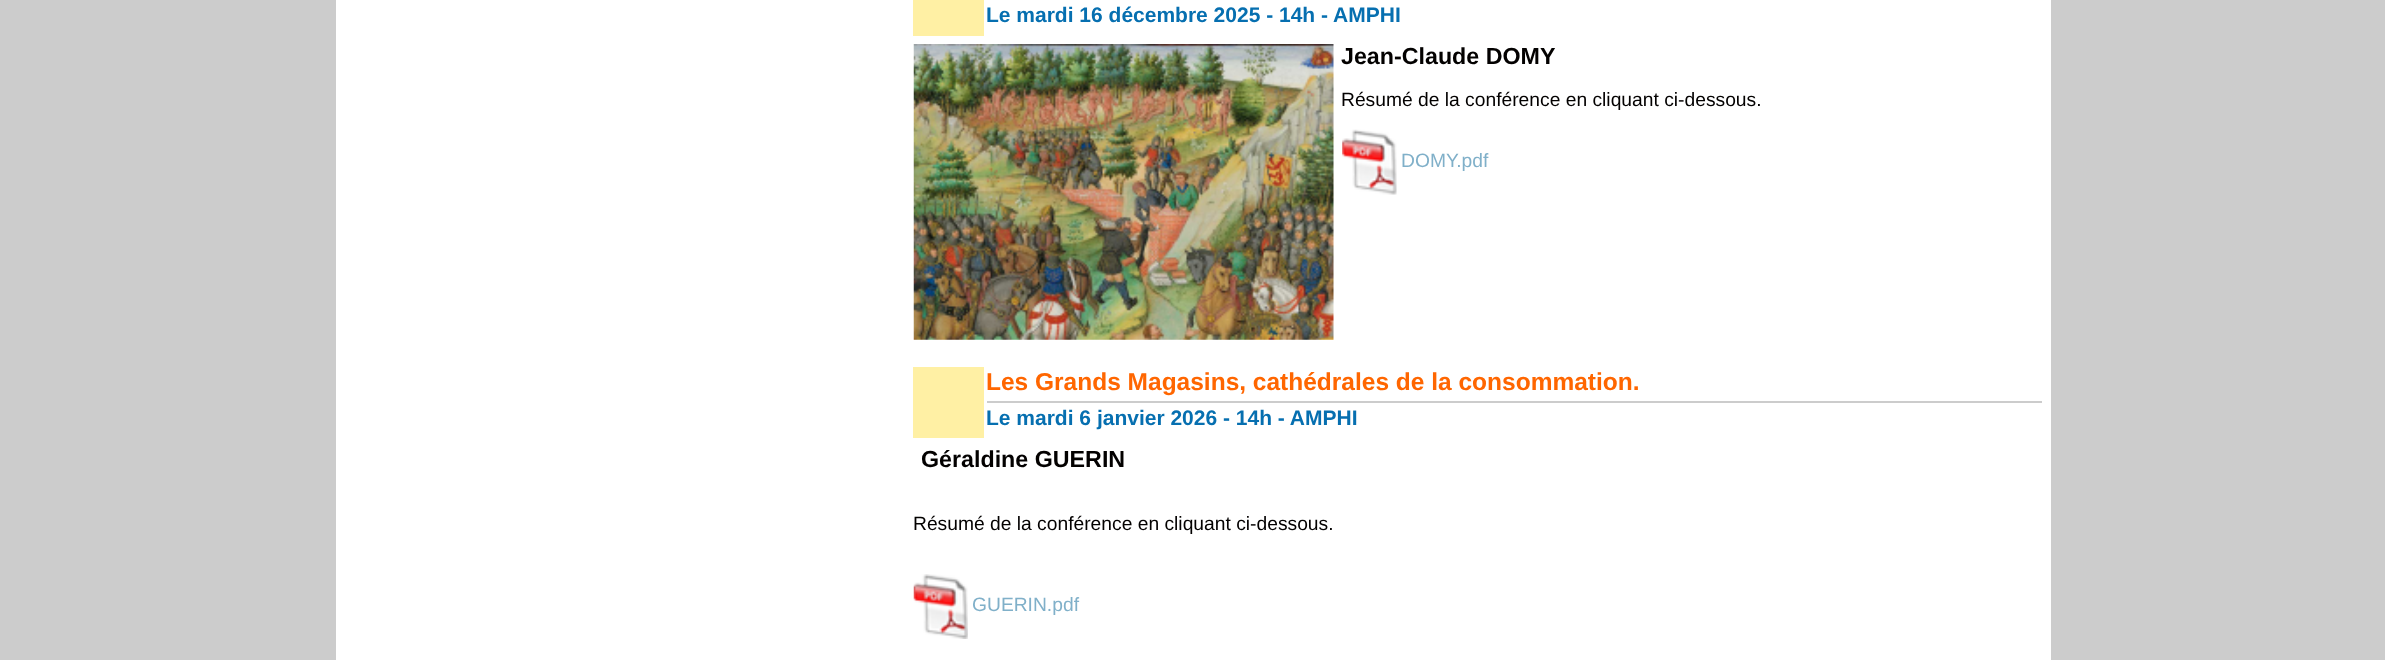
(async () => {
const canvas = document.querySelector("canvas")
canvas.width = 2385
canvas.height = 660
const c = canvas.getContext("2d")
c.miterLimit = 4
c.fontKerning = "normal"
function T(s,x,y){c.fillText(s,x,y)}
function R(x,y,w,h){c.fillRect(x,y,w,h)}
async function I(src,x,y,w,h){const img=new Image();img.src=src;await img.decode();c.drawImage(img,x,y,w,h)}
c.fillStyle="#ccc"
R(0,0,2385,660)
c.fillStyle="#fff"
R(336,0,1715,660)
c.fillStyle="#fff0a4"
R(913,0,71,36)
c.font="bold 21px Liberation Sans"
c.fillStyle="#066fb0"
T("Le mardi 16 décembre 2025 - 14h - AMPHI",986,22)
await I("1.png",913,44,421,296)
c.font="bold 23.25px Liberation Sans"
c.fillStyle="#030100"
T("Jean-Claude DOMY",1341,64)
c.font="19.25px Liberation Sans"
T("Résumé de la conférence en cliquant ci-dessous.",1341,106)
await I("2.png",1342,129,55,66)
c.fillStyle="#80b0c9"
T("DOMY.pdf",1401,167)
c.fillStyle="#fff0a4"
R(913,367,71,71)
c.fillStyle="#ccc"
R(987,401,1055,2)
c.font="bold 24.5px Liberation Sans"
c.fillStyle="#f60"
T("Les Grands Magasins, cathédrales de la consommation.",986,390)
c.font="bold 21px Liberation Sans"
c.fillStyle="#066fb0"
T("Le mardi 6 janvier 2026 - 14h - AMPHI",986,425)
c.font="bold 23.25px Liberation Sans"
c.fillStyle="#030100"
T("Géraldine GUERIN",921,467)
c.font="19.25px Liberation Sans"
T("Résumé de la conférence en cliquant ci-dessous.",913,530)
await I("3.png",913,574,55,65)
c.fillStyle="#80b0c9"
T("GUERIN.pdf",972,611)
})()
